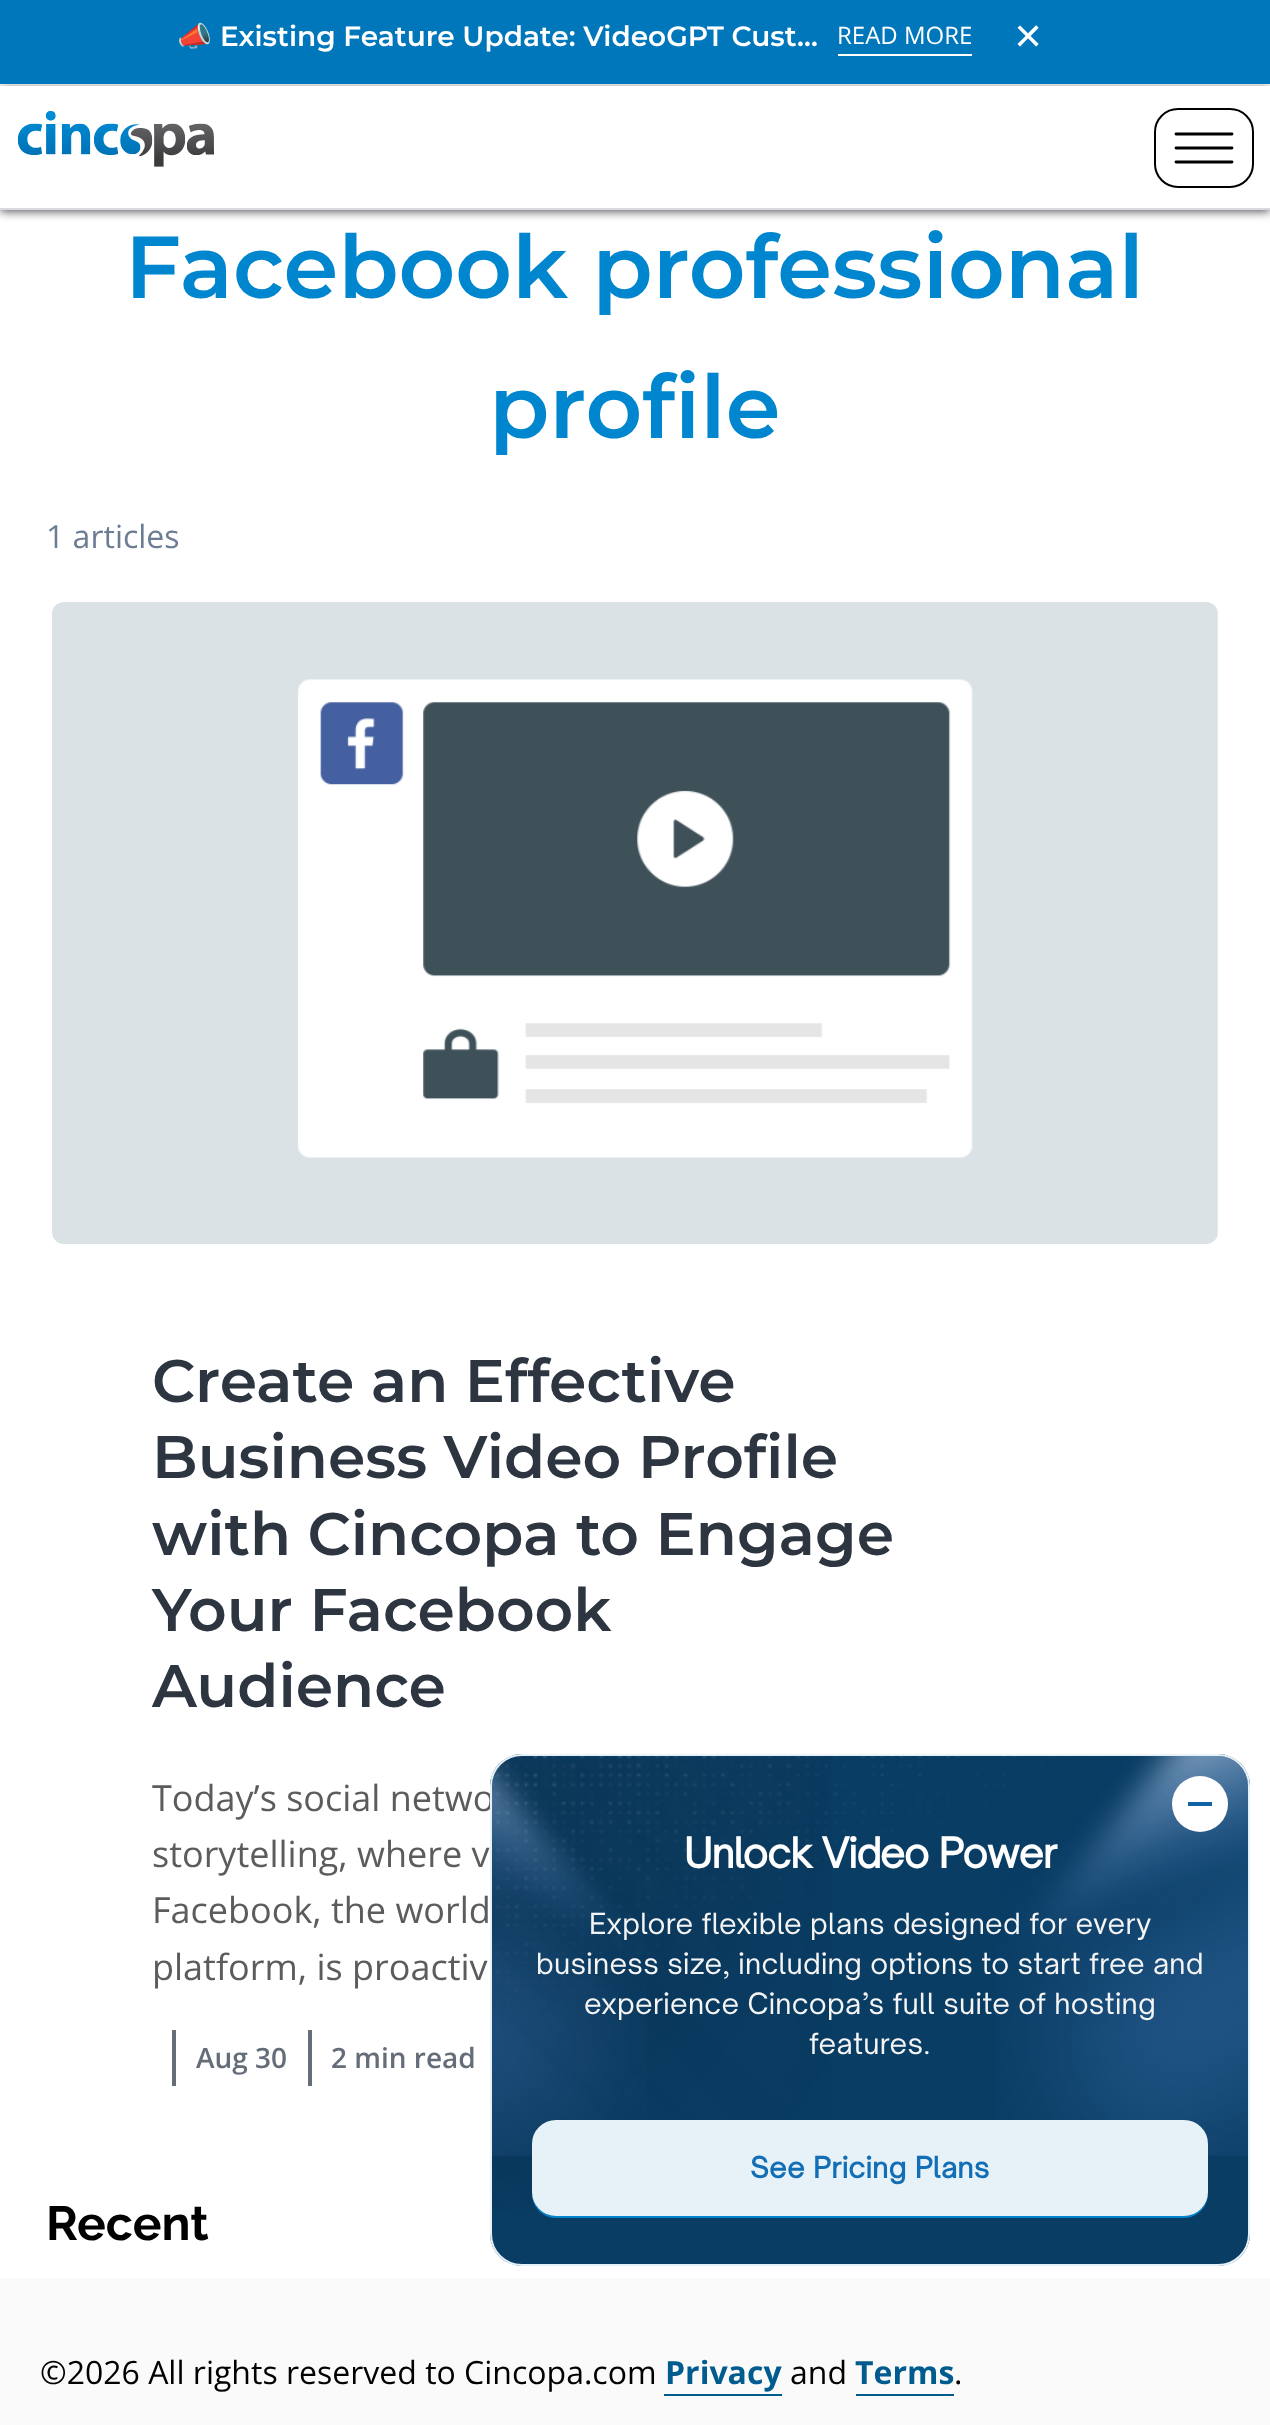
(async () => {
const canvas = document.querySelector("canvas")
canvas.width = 1270
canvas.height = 2425
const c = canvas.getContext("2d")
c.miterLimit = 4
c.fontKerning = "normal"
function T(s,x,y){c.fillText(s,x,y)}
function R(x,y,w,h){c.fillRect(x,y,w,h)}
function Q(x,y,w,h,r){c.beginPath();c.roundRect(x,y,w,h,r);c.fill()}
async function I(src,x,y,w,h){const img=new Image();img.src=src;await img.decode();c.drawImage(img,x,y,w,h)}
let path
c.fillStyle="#fff"
R(0,0,1270,2425)
c.fillStyle="#5f5f5f"
c.filter="blur(5px)"
c.beginPath()
c.rect(0,88,1270,124)
c.fill()
c.filter="none"
c.fillStyle="#0076bb"
R(0,0,1270,84)
c.save()
c.beginPath()
c.rect(178,18,650,36)
c.clip()
c.font="bold 28px Noto Color Emoji"
c.fillStyle="#fff"
T("📣",177,46)
c.restore()
c.font="600 28px Montserrat"
c.fillStyle="#fff"
T("Existing Feature Update: VideoGPT Cust…",220,46)
R(838,54,134,2)
c.font="24px Open Sans"
T("READ MORE",837,44)
c.font="36px DejaVu Sans"
T("✕",1013,49)
R(0,86,1270,122)
c.fillStyle="#d8dadf"
R(0,208,1270,2)
await I("1.png",17,111,197,56)
path = new Path2D("M1176 134h56m-56 14h56m-56 14h56")
c.strokeStyle="#000"
c.lineWidth=2.8
c.lineCap="round"
c.lineJoin="round"
c.stroke(path)
c.beginPath()
c.roundRect(1155,109,98,78,23)
c.lineWidth=2
c.lineJoin="miter"
c.stroke()
c.font="600 88px Montserrat"
c.fillStyle="#0086cf"
T("Facebook professional",125,298)
T("profile",489,438)
c.font="32px Open Sans"
c.fillStyle="#6b7c93"
T("1 articles",46,548)
await I("2.png",52,602,1166,642)
c.font="600 60px Montserrat"
c.fillStyle="#2d3541"
T("Create an Effective",152,1402)
T("Business Video Profile",152,1478)
T("with Cincopa to Engage",152,1555)
T("Your Facebook",152,1631)
T("Audience",152,1707)
c.font="36px Open Sans"
c.fillStyle="#5c5c5e"
T("Today’s social netwo",152,1811)
T("storytelling, where v",152,1867)
T("Facebook, the world",152,1923)
T("platform, is proactiv",152,1980)
c.fillStyle="#0a3d64"
Q(490,1754,760,512,32)
await I("3.png",490,1756,609,455)
c.beginPath()
c.roundRect(491,1755,758,510,31)
c.strokeStyle="#e7f1f8"
c.stroke()
await I("4.png",492,1761,155,395)
await I("5.png",997,1756,251,400)
c.fillStyle="#fff"
c.beginPath()
c.arc(1200,1804,28,0,7)
c.fill()
c.fillStyle="#1064a5"
R(1188,1802,24,4)
c.letterSpacing="-1px"
c.font="bold 40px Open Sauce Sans"
c.fillStyle="#fff"
T("Unlock Video Power",684,1868)
c.letterSpacing="0.28px"
c.font="28px Open Sauce Sans"
c.fillStyle="#f5f5f5"
T("Explore flexible plans designed for every",589,1934)
T("business size, including options to start free and",536,1974)
T("experience Cincopa’s full suite of hosting",584,2014)
T("features.",809,2054)
c.fillStyle="#0086cf"
path = new Path2D("M532 2192v2c0 13 11 24 24 24h628c13 0 24-11 24-24v-2c0 13-11 24-24 24h-628c-13 0-24-11-24-24z")
c.fill(path)
c.fillStyle="#e7f1f8"
c.beginPath()
c.roundRect(533,2121,674,94,23)
c.fill()
c.stroke()
c.font="bold 28px Open Sauce Sans"
c.fillStyle="#126eb5"
T("See Pricing Plans",750,2178)
c.fillStyle="#656d78"
R(172,2030,4,56)
R(308,2030,4,56)
c.letterSpacing="0px"
c.font="600 28px Open Sans"
T("Aug 30",196,2068)
T("2 min read",331,2068)
c.font="bold 48px Raleway"
c.fillStyle="#000"
T("Recent",46,2240)
c.fillStyle="#fafafa"
R(0,2278,1270,147)
c.font="32px Open Sans"
c.fillStyle="#000"
T("©2026 All rights reserved to Cincopa.com",40,2384)
c.font="bold 32px Open Sans"
c.fillStyle="#005b8f"
T("Privacy",665,2384)
R(664,2394,118,2)
c.font="32px Open Sans"
c.fillStyle="#000"
T("and",790,2384)
c.font="bold 32px Open Sans"
c.fillStyle="#005b8f"
T("Terms",855,2384)
R(856,2394,98,2)
c.font="32px Open Sans"
c.fillStyle="#000"
T(".",954,2384)
})()
